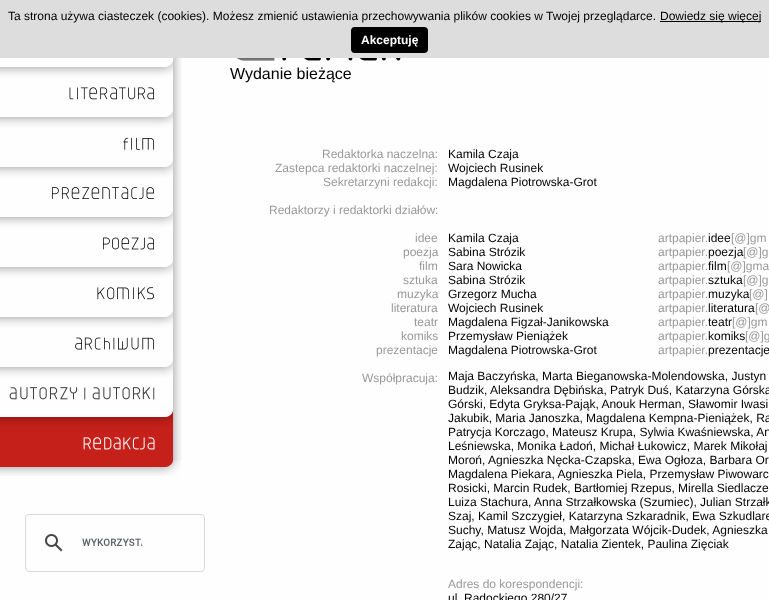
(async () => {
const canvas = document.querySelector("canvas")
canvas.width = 769
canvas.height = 600
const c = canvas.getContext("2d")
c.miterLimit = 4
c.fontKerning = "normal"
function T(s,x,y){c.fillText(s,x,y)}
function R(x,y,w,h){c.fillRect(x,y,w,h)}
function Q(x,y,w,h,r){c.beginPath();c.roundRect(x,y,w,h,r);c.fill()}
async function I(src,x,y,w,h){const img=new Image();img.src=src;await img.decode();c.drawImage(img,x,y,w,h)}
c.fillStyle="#fefefe"
R(0,0,769,600)
c.fillStyle="#ddd"
R(0,0,769,58)
c.font="12px Liberation Sans"
c.fillStyle="#000"
T("Ta strona używa ciasteczek (cookies). Możesz zmienić ustawienia przechowywania plików cookies w Twojej przeglądarce.",8,20)
R(660,21,101,1)
T("Dowiedz się więcej",660,20)
Q(351,27,77,26,4)
c.font="bold 12px Liberation Sans"
c.fillStyle="#fff"
T("Akceptuję",361,44)
await I("1.png",173,58,9,2)
await I("2.png",166,60,16,7)
await I("3.png",0,67,182,43)
await I("4.png",69,87,85,13)
await I("2.png",166,110,16,7)
await I("3.png",0,117,182,43)
await I("5.png",123,137,32,13)
await I("2.png",166,160,16,7)
await I("3.png",0,167,182,43)
await I("6.png",51,187,103,12)
await I("2.png",166,210,16,7)
await I("3.png",0,217,182,43)
await I("7.png",103,237,51,13)
await I("2.png",166,260,16,7)
await I("3.png",0,267,182,43)
await I("8.png",97,287,57,13)
await I("2.png",166,310,16,7)
await I("3.png",0,317,182,43)
await I("9.png",75,337,80,13)
await I("2.png",166,360,16,7)
await I("3.png",0,367,182,43)
await I("10.png",9,387,146,13)
await I("11.png",166,410,16,7)
await I("12.png",0,417,182,43)
await I("13.png",83,437,72,13)
await I("14.png",0,460,181,16)
c.beginPath()
c.roundRect(25.5,514.5,179,57,3.5)
c.strokeStyle="#d9d9d9"
c.stroke()
await I("15.png",45,534,18,18)
await I("16.png",82,538,60,8)
await I("17.png",237,58,164,3)
c.font="16px Liberation Sans"
c.fillStyle="#000"
T("Wydanie bieżące",230,79)
c.font="12px Liberation Sans"
c.fillStyle="#999"
T("Redaktorka naczelna:",322,158)
T("Zastepca redaktorki naczelnej:",275,172)
T("Sekretarzyni redakcji:",323,186)
T("Redaktorzy i redaktorki działów:",269,214)
T("idee",415,242)
T("poezja",403,256)
T("film",419,270)
T("sztuka",403,284)
T("muzyka",397,298)
T("literatura",391,312)
T("teatr",414,326)
T("komiks",401,340)
T("prezentacje",376,354)
T("Współpracuja:",362,382)
c.fillStyle="#000"
T("Kamila Czaja",448,158)
T("Wojciech Rusinek",448,172)
T("Magdalena Piotrowska-Grot",448,186)
T("Kamila Czaja",448,242)
T("Sabina Strózik",448,256)
T("Sara Nowicka",448,270)
T("Sabina Strózik",448,284)
T("Grzegorz Mucha",448,298)
T("Wojciech Rusinek",448,312)
T("Magdalena Figzał-Janikowska",448,326)
T("Przemysław Pieniążek",448,340)
T("Magdalena Piotrowska-Grot",448,354)
c.fillStyle="#999"
T("artpapier.",658,242)
c.fillStyle="#000"
T("idee",708,242)
c.fillStyle="#999"
T("[@]gm",731,242)
T("artpapier.",658,256)
c.fillStyle="#000"
T("poezja",708,256)
c.fillStyle="#999"
T("[@]g",743,256)
T("artpapier.",658,270)
c.fillStyle="#000"
T("film",708,270)
c.fillStyle="#999"
T("[@]gma",727,270)
T("artpapier.",658,284)
c.fillStyle="#000"
T("sztuka",708,284)
c.fillStyle="#999"
T("[@]g",743,284)
T("artpapier.",658,298)
c.fillStyle="#000"
T("muzyka",708,298)
c.fillStyle="#999"
T("[@]",749,298)
T("artpapier.",658,312)
c.fillStyle="#000"
T("literatura",708,312)
c.fillStyle="#999"
T("[@",755,312)
T("artpapier.",658,326)
c.fillStyle="#000"
T("teatr",708,326)
c.fillStyle="#999"
T("[@]gm",732,326)
T("artpapier.",658,340)
c.fillStyle="#000"
T("komiks",708,340)
c.fillStyle="#999"
T("[@]g",745,340)
T("artpapier.",658,354)
c.fillStyle="#000"
T("prezentacje",708,354)
T("Maja Baczyńska, Marta Bieganowska-Molendowska, Justyn",448,380)
T("Budzik, Aleksandra Dębińska, Patryk Duś, Katarzyna Górska",448,394)
T("Górski, Edyta Gryksa-Pająk, Anouk Herman, Sławomir Iwasi",448,408)
T("Jakubik, Maria Janoszka, Magdalena Kempna-Pieniążek, Ra",448,422)
T("Patrycja Korczago, Mateusz Krupa, Sylwia Kwaśniewska, An",448,436)
T("Leśniewska, Monika Ładoń, Michał Łukowicz, Marek Mikołaj",448,450)
T("Moroń, Agnieszka Nęcka-Czapska, Ewa Ogłoza, Barbara Or",448,464)
T("Magdalena Piekara, Agnieszka Piela, Przemysław Piwowarc",448,478)
T("Rosicki, Marcin Rudek, Bartłomiej Rzepus, Mirella Siedlacze",448,492)
T("Luiza Stachura, Anna Strzałkowska (Szumiec), Julian Strzałk",448,506)
T("Szaj, Kamil Szczygieł, Katarzyna Szkaradnik, Ewa Szkudlare",448,520)
T("Suchy, Matusz Wojda, Małgorzata Wójcik-Dudek, Agnieszka",448,534)
T("Zając, Natalia Zając, Natalia Zientek, Paulina Zięciak",448,548)
c.fillStyle="#999"
T("Adres do korespondencji:",448,588)
c.fillStyle="#000"
T("ul. Radockiego 280/27",448,602)
})()
